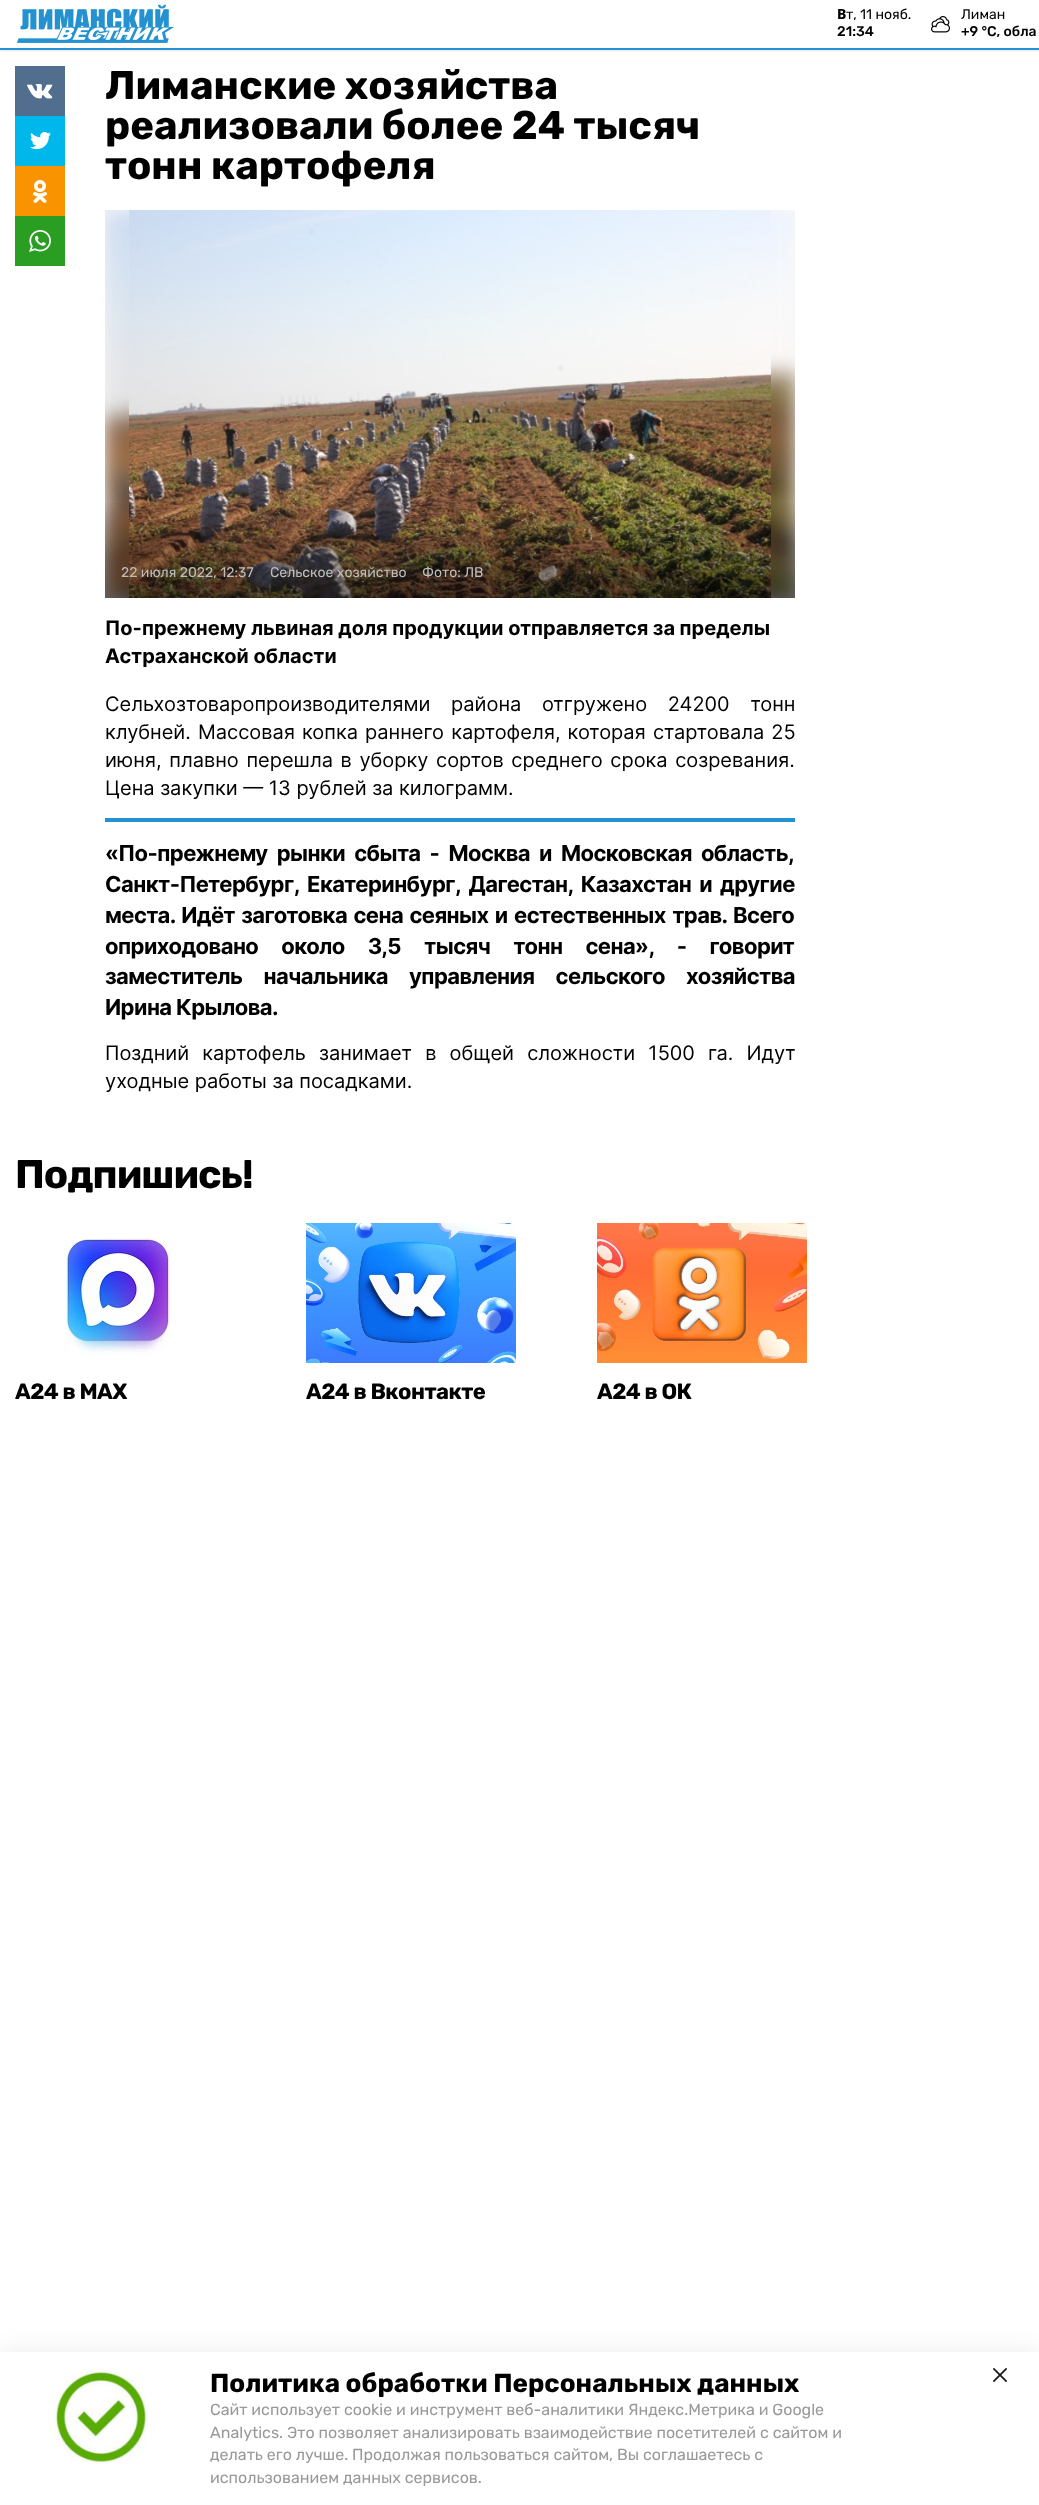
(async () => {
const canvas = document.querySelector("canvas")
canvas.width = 1039
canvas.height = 2505
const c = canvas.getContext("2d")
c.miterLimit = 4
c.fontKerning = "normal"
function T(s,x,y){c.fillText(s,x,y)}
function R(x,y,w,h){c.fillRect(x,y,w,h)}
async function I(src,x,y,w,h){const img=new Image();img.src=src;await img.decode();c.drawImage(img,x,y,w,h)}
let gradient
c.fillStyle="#fff"
R(0,0,1039,2505)
c.save()
c.beginPath()
c.rect(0,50,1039,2)
c.clip()
c.fillStyle="#0000001a"
c.filter="blur(1.5px)"
c.beginPath()
c.rect(0,1,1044,50)
c.fill()
c.filter="none"
c.restore()
c.fillStyle="#2491d0"
R(0,48,1039,2)
await I("1.png",17,4,157,39)
c.font="800 14px Noto Sans"
c.fillStyle="#000"
T("В",837,19)
c.font="14px Rubik"
T("т, 11 нояб.",846,19)
c.font="500 14px Rubik"
T("21:34",837,36)
await I("2.png",931,16,19,17)
c.font="14px Rubik"
T("Лиман",961,19)
c.font="500 14px Rubik"
T("+9 °С, обла",961,36)
c.fillStyle="#526e8f"
R(15,66,50,50)
await I("3.png",27,84,26,15)
c.fillStyle="#00b7ec"
R(15,116,50,50)
await I("4.png",30,132,21,18)
c.fillStyle="#f99400"
R(15,166,50,50)
await I("5.png",33,180,14,23)
c.fillStyle="#2a9e22"
R(15,216,50,50)
await I("6.png",29,230,22,22)
c.font="bold 40px Rubik"
c.fillStyle="#000"
T("Лиманские хозяйства",105,99)
T("реализовали более 24 тысяч",105,139)
T("тонн картофеля",105,179)
c.fillStyle="#f7f7f7"
R(105,210,690,388)
await I("7.png",105,210,690,388)
await I("8.png",129,210,642,388)
gradient = c.createLinearGradient(450,499,450,598)
gradient.addColorStop(0,"#00000000")
gradient.addColorStop(1,"#0000008f")
c.fillStyle = gradient
R(105,503,690,95)
c.font="14px Rubik"
c.fillStyle="#bdbdbd"
T("22 июля 2022, 12:37",121,577)
T("Сельское хозяйство",270,577)
T("Фото: ЛВ",422,577)
c.font="bold 20px Inter"
c.fillStyle="#000"
T("По-прежнему львиная доля продукции отправляется за пределы",105,635)
T("Астраханской области",105,663)
c.wordSpacing="15px"
c.font="20px Inter"
T("Сельхозтоваропроизводителями района отгружено 24200 тонн",105,711)
c.wordSpacing="1.5px"
T("клубней. Массовая копка раннего картофеля, которая стартовала 25",105,739)
c.wordSpacing="2px"
T("июня, плавно перешла в уборку сортов среднего срока созревания.",105,767)
c.wordSpacing="0px"
T("Цена закупки — 13 рублей за килограмм.",105,795)
c.fillStyle="#2491d0"
R(105,818,690,4)
c.letterSpacing="-0.55px"
c.wordSpacing="4.5px"
c.font="bold 22px Inter"
c.fillStyle="#000"
T("«По-прежнему рынки сбыта - Москва и Московская область,",105,861)
c.wordSpacing="3.5px"
T("Санкт-Петербург, Екатеринбург, Дагестан, Казахстан и другие",105,892)
c.wordSpacing="1.75px"
T("места. Идёт заготовка сена сеяных и естественных трав. Всего",105,923)
c.wordSpacing="18.5px"
T("оприходовано около 3,5 тысяч тонн сена», - говорит",105,954)
c.wordSpacing="16.5px"
T("заместитель начальника управления сельского хозяйства",105,984)
c.wordSpacing="0px"
T("Ирина Крылова.",105,1015)
c.letterSpacing="0px"
c.wordSpacing="7.5px"
c.font="20px Inter"
T("Поздний картофель занимает в общей сложности 1500 га. Идут",105,1060)
c.wordSpacing="0px"
T("уходные работы за посадками.",105,1088)
c.letterSpacing="-1px"
c.font="bold 40px Rubik"
T("Подпишись!",15,1188)
await I("9.png",15,1223,210,140)
c.letterSpacing="-0.55px"
c.font="bold 22px Rubik"
T("А24 в MAX",15,1399)
await I("10.png",306,1223,210,140)
T("А24 в Вконтакте",306,1399)
await I("11.png",597,1223,210,140)
T("А24 в ОК",597,1399)
c.fillStyle="#0000000d"
c.filter="blur(10px)"
c.beginPath()
c.rect(0,2347,1039,153)
c.fill()
c.filter="none"
c.fillStyle="#fff"
R(0,2352,1039,153)
await I("12.png",16,2368,170,96)
c.letterSpacing="0px"
c.font="bold 26px Rubik"
c.fillStyle="#000"
T("Политика обработки Персональных данных",210,2392)
c.font="16px Rubik"
c.fillStyle="#999"
T("Сайт использует cookie и инструмент веб-аналитики Яндекс.Метрика и Google",210,2415)
T("Analytics. Это позволяет анализировать взаимодействие посетителей с сайтом и",210,2438)
T("делать его лучше. Продолжая пользоваться сайтом, Вы соглашаетесь с",210,2460)
T("использованием данных сервисов.",210,2483)
await I("13.png",993,2368,14,14)
})()
